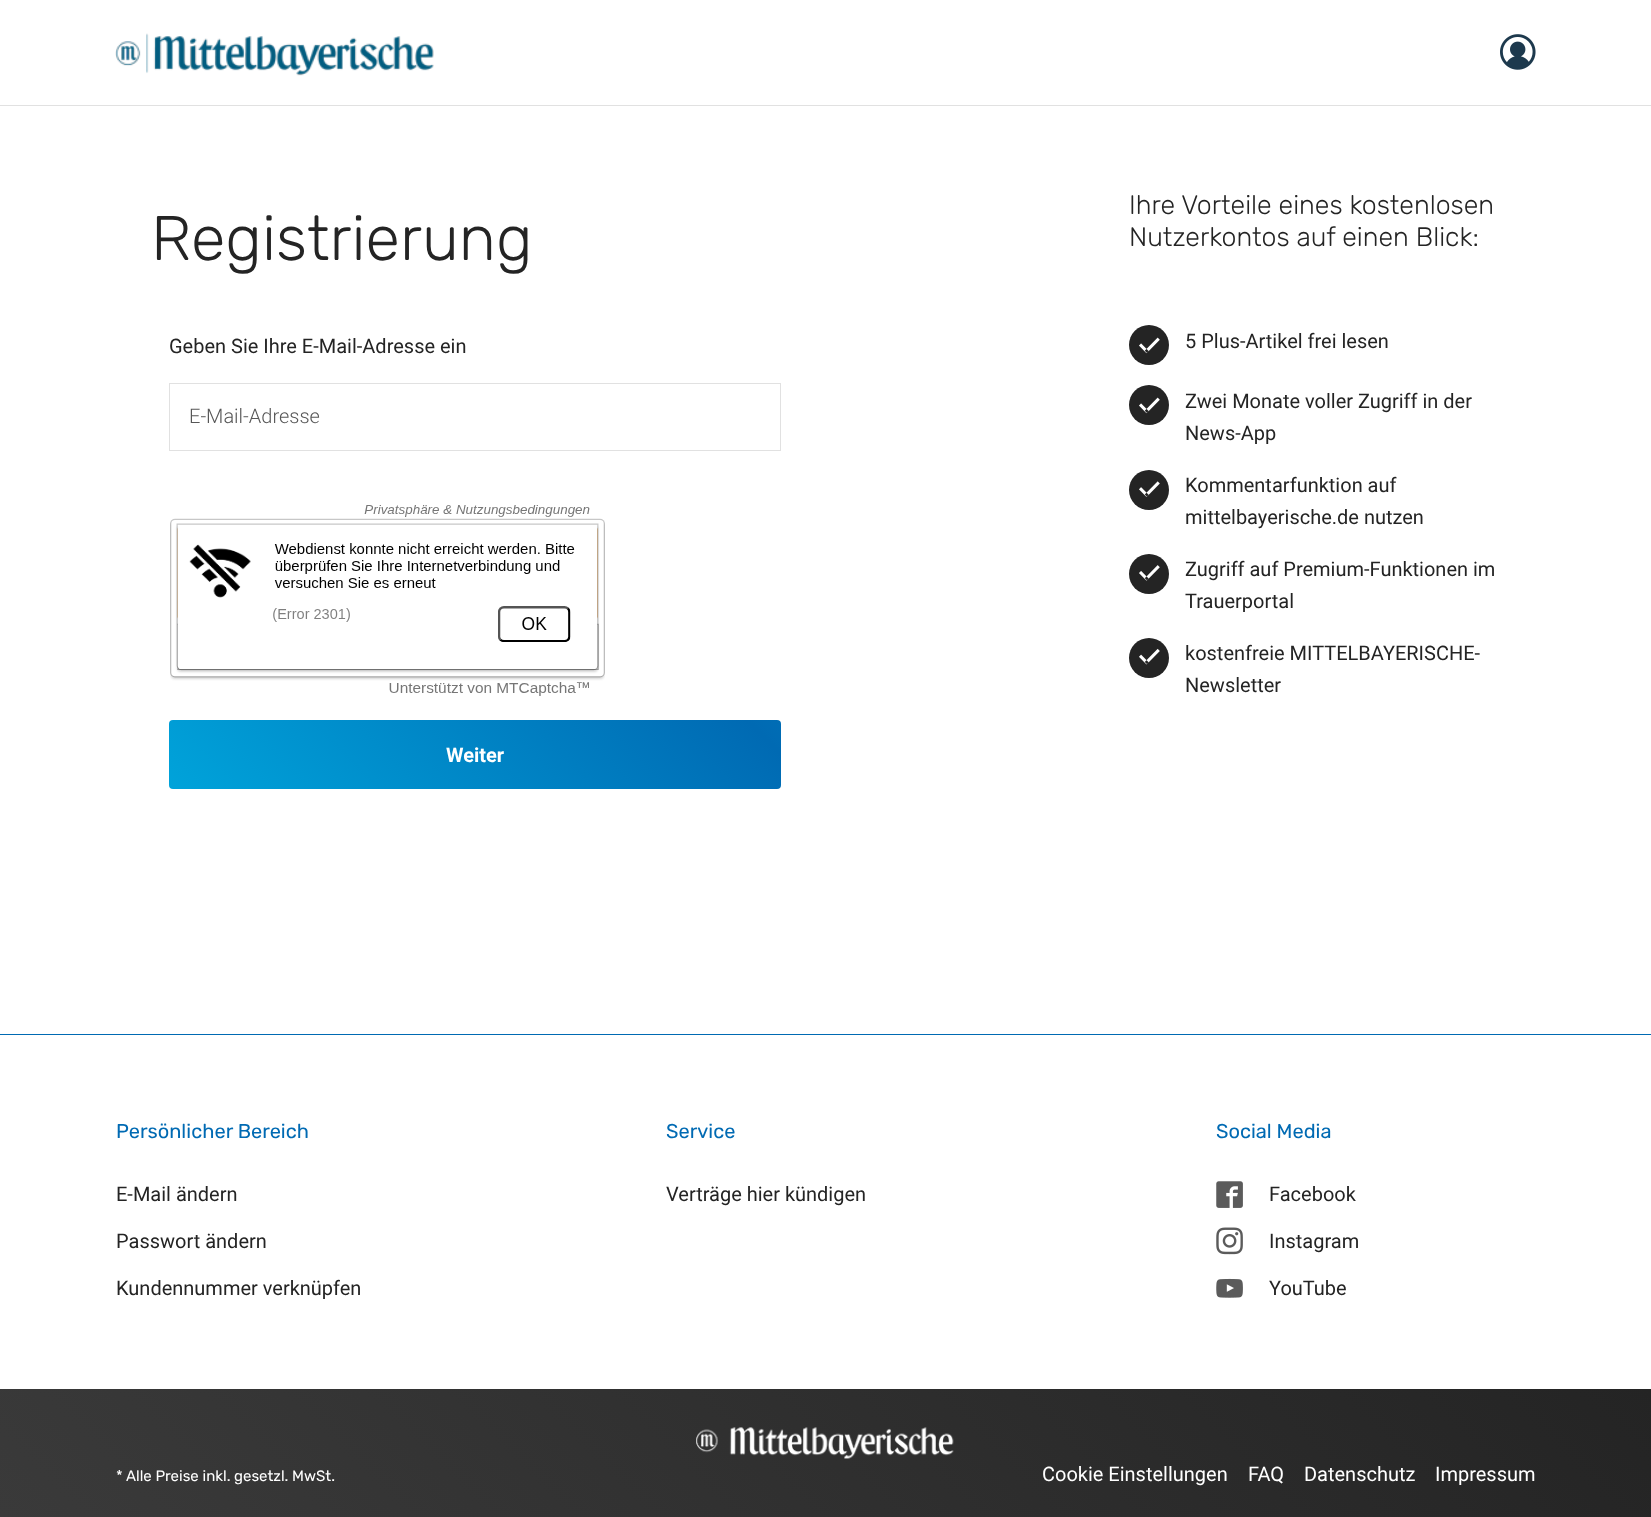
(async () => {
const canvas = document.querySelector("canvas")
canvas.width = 1651
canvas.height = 1517
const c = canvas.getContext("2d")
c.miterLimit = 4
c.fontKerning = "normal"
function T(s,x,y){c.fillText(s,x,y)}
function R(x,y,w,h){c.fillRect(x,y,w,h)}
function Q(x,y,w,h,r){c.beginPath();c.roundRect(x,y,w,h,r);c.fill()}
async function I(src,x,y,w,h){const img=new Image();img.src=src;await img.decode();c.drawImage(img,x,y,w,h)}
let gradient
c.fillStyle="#fff"
R(0,0,1651,1517)
c.fillStyle="#e1e1e1"
R(0,105,1651,1)
await I("1.png",115,33,319,43)
await I("2.png",1500,34,36,36)
c.font="300 63px 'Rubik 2'"
c.fillStyle="#242424"
T("Registrierung",151,260)
c.font="20px Roboto"
T("Geben Sie Ihre E-Mail-Adresse ein",169,353)
c.strokeStyle="#e1e1e1"
c.strokeRect(169.5,383.5,611,67)
c.font="300 20px Roboto"
c.fillStyle="#575757"
T("E-Mail-Adresse",189,423)
await I("3.png",170,505,435,191)
gradient = c.createLinearGradient(1105,431,458,1078)
gradient.addColorStop(0,"#00a3da")
gradient.addColorStop(.5,"#006ab3")
gradient.addColorStop(1,"#00a3da")
c.fillStyle = gradient
Q(169,720,612,69,4)
c.font="bold 20px Roboto"
c.fillStyle="#fff"
T("Weiter",446,762)
c.font="300 26.7px 'Rubik 2'"
c.fillStyle="#242424"
T("Ihre Vorteile eines kostenlosen",1129,214)
T("Nutzerkontos auf einen Blick:",1129,246)
c.beginPath()
c.arc(1149,345,20,0,7)
c.fill()
await I("4.png",1139,337,21,17)
c.font="20px Roboto"
T("5 Plus-Artikel frei lesen",1185,348)
c.beginPath()
c.arc(1149,405,20,0,7)
c.fill()
await I("4.png",1139,397,21,17)
T("Zwei Monate voller Zugriff in der",1185,408)
T("News-App",1185,440)
c.beginPath()
c.arc(1149,490,20,0,7)
c.fill()
await I("5.png",1139,481,21,16)
T("Kommentarfunktion auf",1185,492)
T("mittelbayerische.de nutzen",1185,524)
c.beginPath()
c.arc(1149,574,20,0,7)
c.fill()
await I("6.png",1139,565,21,16)
T("Zugriff auf Premium-Funktionen im",1185,576)
T("Trauerportal",1185,608)
c.beginPath()
c.arc(1149,658,20,0,7)
c.fill()
await I("7.png",1139,648,21,17)
T("kostenfreie MITTELBAYERISCHE-",1185,660)
T("Newsletter",1185,692)
c.fillStyle="#006ab3"
R(0,1034,1651,1)
c.font="300 20px Rubik"
T("Persönlicher Bereich",116,1138)
c.font="20px Roboto"
c.fillStyle="#242424"
T("E-Mail ändern",116,1201)
T("Passwort ändern",116,1248)
T("Kundennummer verknüpfen",116,1295)
c.font="300 20px Rubik"
c.fillStyle="#006ab3"
T("Service",666,1138)
c.font="20px Roboto"
c.fillStyle="#242424"
T("Verträge hier kündigen",666,1201)
c.font="300 20px Rubik"
c.fillStyle="#006ab3"
T("Social Media",1216,1138)
await I("8.png",1216,1181,27,27)
c.font="20px Roboto"
c.fillStyle="#242424"
T("Facebook",1269,1201)
await I("9.png",1216,1227,27,28)
T("Instagram",1269,1248)
await I("10.png",1216,1278,27,20)
T("YouTube",1269,1295)
gradient = c.createLinearGradient(1271,1008,381,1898)
gradient.addColorStop(0,"#242424")
gradient.addColorStop(1,"#3a3a3a")
c.fillStyle = gradient
R(0,1389,1651,128)
await I("11.png",696,1427,258,32)
c.font="300 15px Rubik"
c.fillStyle="#fff"
T("* Alle Preise inkl. gesetzl. MwSt.",116,1481)
c.font="20px Roboto"
T("Cookie Einstellungen",1042,1481)
T("FAQ",1248,1481)
T("Datenschutz",1304,1481)
T("Impressum",1435,1481)
})()
